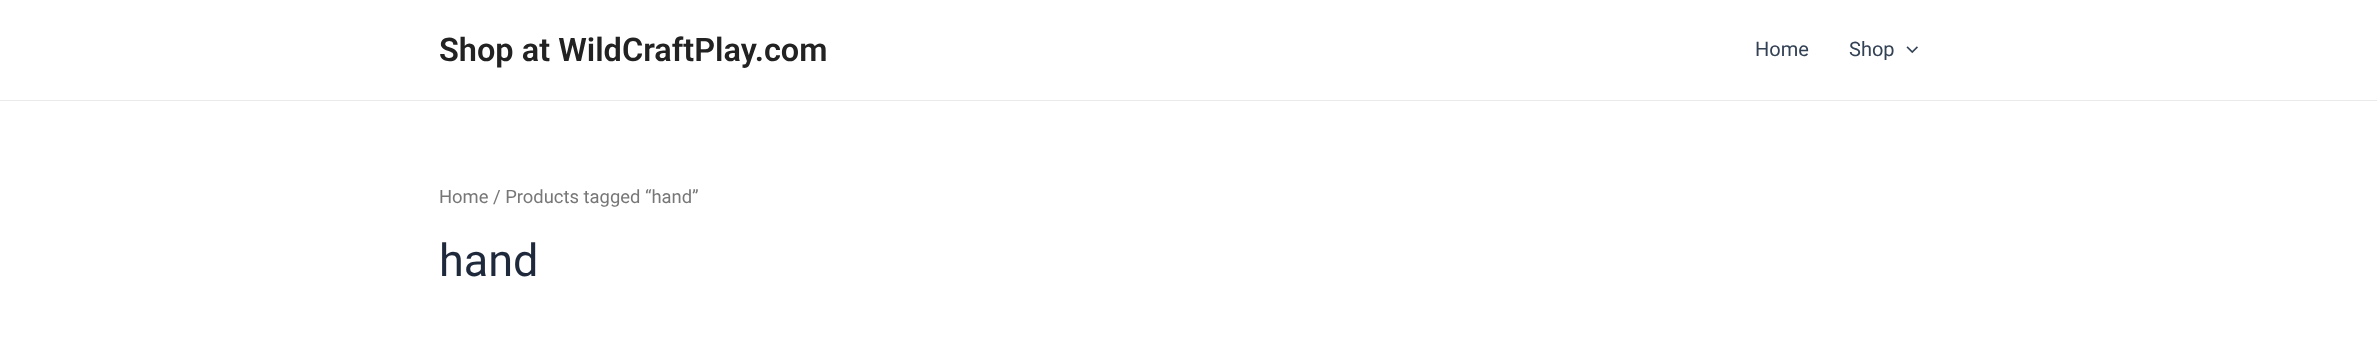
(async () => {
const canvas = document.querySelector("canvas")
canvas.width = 2377
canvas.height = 349
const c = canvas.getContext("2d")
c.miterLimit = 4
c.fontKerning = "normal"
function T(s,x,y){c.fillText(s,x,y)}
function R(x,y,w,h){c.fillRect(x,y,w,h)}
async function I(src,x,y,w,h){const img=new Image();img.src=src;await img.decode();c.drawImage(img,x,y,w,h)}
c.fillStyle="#fff"
R(0,0,2377,349)
c.fillStyle="#eaeaea"
R(0,100,2377,1)
c.font="600 32.5px Roboto"
c.fillStyle="#222"
T("Shop at WildCraftPlay.com",439,61)
c.font="20px Roboto"
c.fillStyle="#334155"
T("Home",1755,56)
T("Shop",1849,56)
await I("1.png",1906,46,12,8)
c.font="18.4px Roboto"
c.fillStyle="#777"
T("Home / Products tagged “hand”",439,203)
c.font="45px Roboto"
c.fillStyle="#1e293b"
T("hand",439,276)
})()
